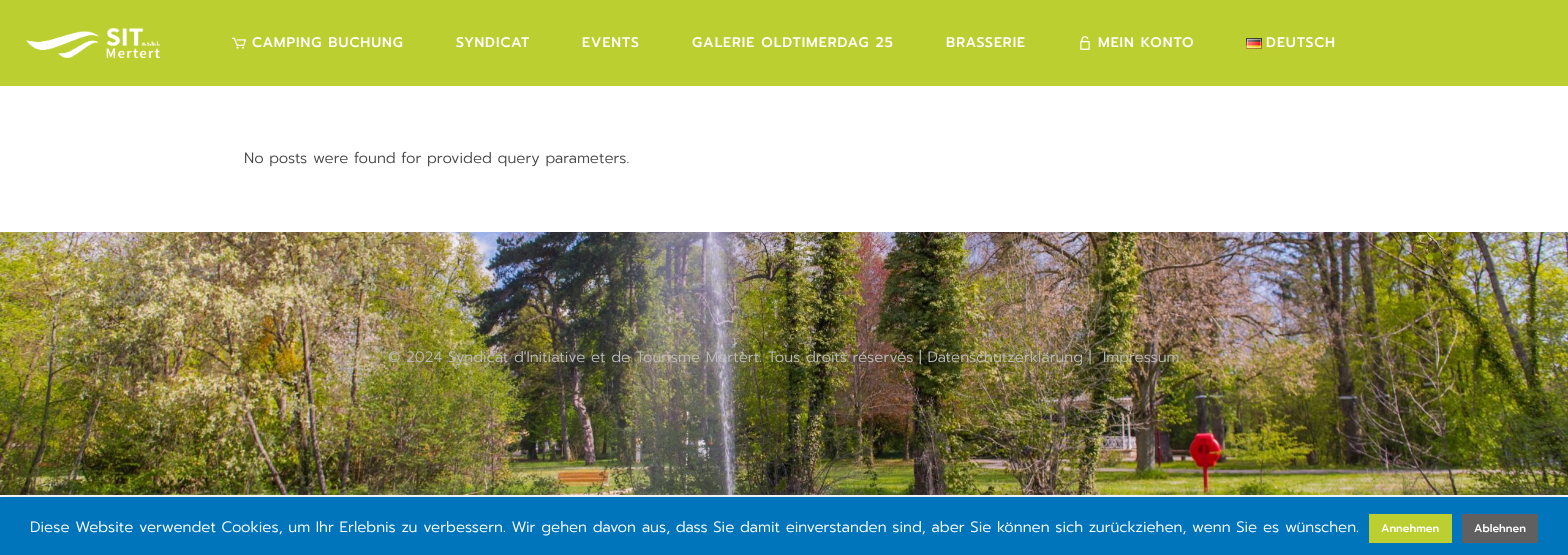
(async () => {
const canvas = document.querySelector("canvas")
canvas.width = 1568
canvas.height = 555
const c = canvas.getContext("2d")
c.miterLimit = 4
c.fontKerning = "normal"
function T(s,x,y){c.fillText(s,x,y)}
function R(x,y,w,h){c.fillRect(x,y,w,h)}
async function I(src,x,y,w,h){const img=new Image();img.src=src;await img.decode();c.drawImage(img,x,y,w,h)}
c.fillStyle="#fff"
R(0,0,1568,555)
c.fillStyle="#bccf30"
R(0,0,1568,86)
await I("1.png",26,28,134,31)
await I("2.png",232,37,14,12)
c.letterSpacing="1px"
c.font="500 14px Prompt"
c.fillStyle="#fff"
T("CAMPING BUCHUNG",252,47)
T("SYNDICAT",456,47)
T("EVENTS",582,47)
T("GALERIE OLDTIMERDAG 25",692,47)
T("BRASSERIE",946,47)
await I("3.png",1080,36,10,14)
T("MEIN KONTO",1098,47)
await I("4.png",1246,38,16,11)
T("DEUTSCH",1266,47)
c.letterSpacing="0px"
c.font="300 15px Prompt"
c.fillStyle="#484848"
T("No posts were found for provided query parameters.",244,163)
await I("5.png",0,232,1568,263)
c.fillStyle="#bcbcbc"
T("© 2024 Syndicat d'Initiative et de Tourisme Mertert. Tous droits réservés | Datenschutzerklärung |",388,362)
T("Impressum",1103,362)
c.fillStyle="#acabab4d"
c.filter="blur(5px)"
c.beginPath()
c.rect(0,496,1568,58)
c.fill()
c.filter="none"
c.fillStyle="#0075bc"
R(0,497,1568,58)
c.fillStyle="#fff"
T("Diese Website verwendet Cookies, um Ihr Erlebnis zu verbessern. Wir gehen davon aus, dass Sie damit einverstanden sind, aber Sie können sich zurückziehen, wenn Sie es wünschen.",30,532)
c.fillStyle="#bccf30"
R(1369,514,83,29)
c.font="500 11px Prompt"
c.fillStyle="#fff"
T("Annehmen",1381,532)
c.fillStyle="#606060"
R(1462,514,76,29)
c.fillStyle="#fff"
T("Ablehnen",1474,532)
})()
